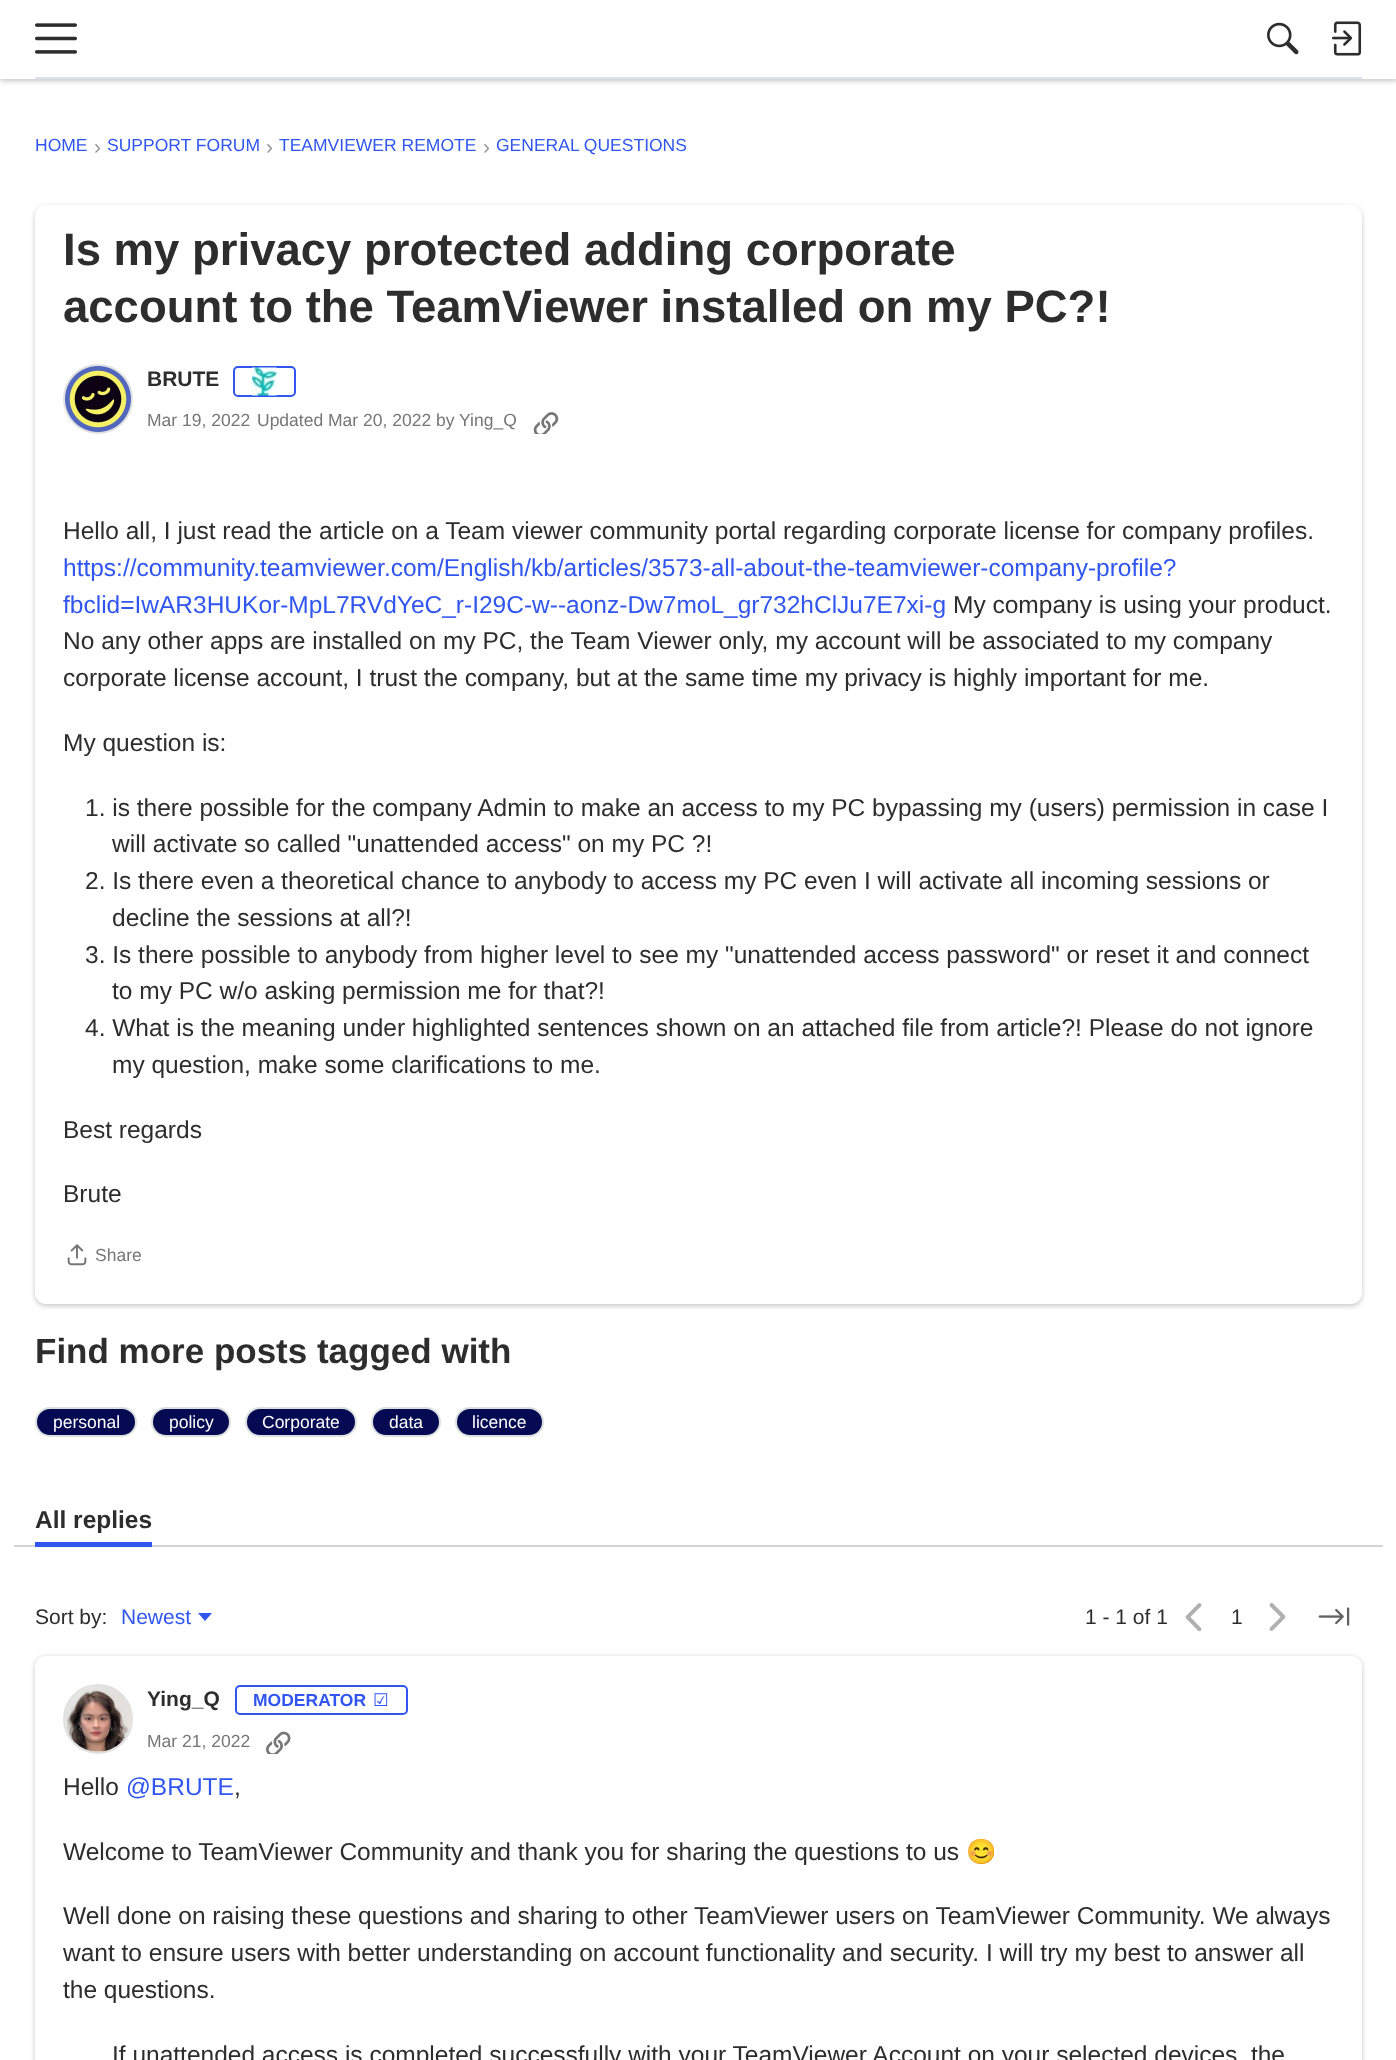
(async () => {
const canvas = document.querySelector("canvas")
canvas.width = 1396
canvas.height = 2060
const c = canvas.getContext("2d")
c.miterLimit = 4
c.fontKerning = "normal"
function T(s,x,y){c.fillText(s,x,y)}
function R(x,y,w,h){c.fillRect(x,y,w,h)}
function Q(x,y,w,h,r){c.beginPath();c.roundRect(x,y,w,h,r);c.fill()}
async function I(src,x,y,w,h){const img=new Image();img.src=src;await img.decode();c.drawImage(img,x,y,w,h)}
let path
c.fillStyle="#fff"
R(0,0,1396,2060)
c.fillStyle="#00000038"
c.filter="blur(2.5px)"
c.beginPath()
c.rect(0,2,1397,79)
c.fill()
c.filter="none"
c.fillStyle="#fff"
R(0,0,1396,79)
c.fillStyle="#d9e2eb"
R(35,77,1327,2)
await I("1.png",35,23,42,31)
await I("2.png",1267,22,32,33)
await I("3.png",1332,21,30,35)
c.font="17.5px Liberation Sans"
c.fillStyle="#3056ef"
T("HOME",35,151)
c.font="21px Liberation Sans"
c.fillStyle="#969696"
T("›",94,154)
c.font="17.5px Liberation Sans"
c.fillStyle="#3056ef"
T("SUPPORT FORUM",107,151)
c.font="21px Liberation Sans"
c.fillStyle="#969696"
T("›",266,154)
c.font="17.5px Liberation Sans"
c.fillStyle="#3056ef"
T("TEAMVIEWER REMOTE",279,151)
c.font="21px Liberation Sans"
c.fillStyle="#969696"
T("›",483,154)
c.font="17.5px Liberation Sans"
c.fillStyle="#3056ef"
T("GENERAL QUESTIONS",496,151)
c.fillStyle="#00000038"
c.filter="blur(2.5px)"
c.beginPath()
c.roundRect(35,207,1327,1099,11)
c.fill()
c.filter="none"
c.fillStyle="#fff"
Q(35,205,1327,1099,11)
c.font="bold 45.5px Liberation Sans"
c.fillStyle="#2d2d2d"
T("Is my privacy protected adding corporate",63,265)
T("account to the TeamViewer installed on my PC?!",63,322)
c.beginPath()
c.arc(98,399,34,0,7)
c.strokeStyle="#e0e0e0"
c.lineWidth=2
c.stroke()
await I("4.png",65,366,66,66)
c.font="bold 21px Liberation Sans"
T("BRUTE",147,386)
c.beginPath()
c.roundRect(234,367,61,29,4)
c.strokeStyle="#3056ef"
c.stroke()
await I("5.png",252,367,25,29)
c.font="17.5px Liberation Sans"
c.fillStyle="#767676"
T("Mar 19, 2022",147,426)
T("Updated Mar 20, 2022 by Ying_Q",257,426)
await I("6.png",533,412,26,22)
c.font="24.5px Liberation Sans"
c.fillStyle="#2d2d2d"
T("Hello all, I just read the article on a Team viewer community portal regarding corporate license for company profiles.",63,539)
c.fillStyle="#3056ef"
T("https://community.teamviewer.com/English/kb/articles/3573-all-about-the-teamviewer-company-profile?",63,576)
T("fbclid=IwAR3HUKor-MpL7RVdYeC_r-I29C-w--aonz-Dw7moL_gr732hClJu7E7xi-g",63,613)
c.fillStyle="#2d2d2d"
T("My company is using your product.",953,613)
T("No any other apps are installed on my PC, the Team Viewer only, my account will be associated to my company",63,649)
T("corporate license account, I trust the company, but at the same time my privacy is highly important for me.",63,686)
T("My question is:",63,751)
T("1. is there possible for the company Admin to make an access to my PC bypassing my (users) permission in case I",85,816)
T("will activate so called \"unattended access\" on my PC ?!",112,852)
T("2. Is there even a theoretical chance to anybody to access my PC even I will activate all incoming sessions or",85,889)
T("decline the sessions at all?!",112,926)
T("3. Is there possible to anybody from higher level to see my \"unattended access password\" or reset it and connect",85,963)
T("to my PC w/o asking permission me for that?!",112,999)
T("4. What is the meaning under highlighted sentences shown on an attached file from article?! Please do not ignore",85,1036)
T("my question, make some clarifications to me.",112,1073)
T("Best regards",63,1138)
T("Brute",63,1202)
await I("7.png",67,1244,20,22)
c.font="17.5px Liberation Sans"
c.fillStyle="#767676"
T("Share",95,1261)
c.font="bold 35px Liberation Sans"
c.fillStyle="#2d2d2d"
T("Find more posts tagged with",35,1363)
c.fillStyle="#050a52"
c.beginPath()
c.roundRect(36,1408,100,28,14)
c.fill()
c.strokeStyle="#dddee0"
c.stroke()
c.font="17.5px Liberation Sans"
c.fillStyle="#fff"
T("personal",53,1428)
c.fillStyle="#050a52"
c.beginPath()
c.roundRect(152,1408,78,28,14)
c.fill()
c.stroke()
c.fillStyle="#fff"
T("policy",169,1428)
c.fillStyle="#050a52"
c.beginPath()
c.roundRect(246,1408,110,28,14)
c.fill()
c.stroke()
c.fillStyle="#fff"
T("Corporate",262,1428)
c.fillStyle="#050a52"
c.beginPath()
c.roundRect(372,1408,68,28,14)
c.fill()
c.stroke()
c.fillStyle="#fff"
T("data",389,1428)
c.fillStyle="#050a52"
c.beginPath()
c.roundRect(456,1408,87,28,14)
c.fill()
c.stroke()
c.fillStyle="#fff"
T("licence",472,1428)
c.fillStyle="#d5d5d5"
R(14,1545,1369,2)
c.save()
c.beginPath()
c.rect(35,1505,117,28)
c.clip()
c.font="bold 24.5px Liberation Sans"
c.fillStyle="#2d2d2d"
T("All replies",35,1528)
c.restore()
c.fillStyle="#3056ef"
R(35,1542,117,5)
c.font="21px Liberation Sans"
c.fillStyle="#2d2d2d"
T("Sort by:",35,1624)
c.fillStyle="#3056ef"
T("Newest",121,1624)
path = new Path2D("M198 1613h14l-7 8z")
c.fill(path)
c.fillStyle="#2d2d2d"
T("1 - 1 of 1",1085,1624)
await I("8.png",1185,1603,17,29)
T("1",1231,1624)
await I("9.png",1269,1603,17,28)
await I("10.png",1318,1607,32,19)
c.fillStyle="#00000038"
c.filter="blur(2.5px)"
c.beginPath()
c.roundRect(35,1657,1327,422,11)
c.fill()
c.filter="none"
c.fillStyle="#fff"
Q(35,1656,1327,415,11)
c.beginPath()
c.arc(98,1719,34,0,7)
c.strokeStyle="#e0e0e0"
c.stroke()
await I("11.png",65,1686,66,66)
c.font="bold 21px Liberation Sans"
c.fillStyle="#2d2d2d"
T("Ying_Q",147,1706)
c.beginPath()
c.roundRect(236,1686,171,28,4)
c.strokeStyle="#3056ef"
c.stroke()
c.font="bold 17.5px Liberation Sans"
c.fillStyle="#3056ef"
T("MODERATOR",253,1706)
c.font="17.5px DejaVu Sans"
T("☑",373,1706)
c.font="17.5px Liberation Sans"
c.fillStyle="#767676"
T("Mar 21, 2022",147,1747)
await I("12.png",266,1731,25,23)
c.font="24.5px Liberation Sans"
c.fillStyle="#2d2d2d"
T("Hello",63,1795)
c.fillStyle="#3056ef"
T("@BRUTE",126,1795)
c.fillStyle="#2d2d2d"
T(",",234,1795)
T("Welcome to TeamViewer Community and thank you for sharing the questions to us",63,1860)
c.font="24.5px Noto Color Emoji"
T("😊",966,1860)
c.font="24.5px Liberation Sans"
T("Well done on raising these questions and sharing to other TeamViewer users on TeamViewer Community. We always",63,1924)
T("want to ensure users with better understanding on account functionality and security. I will try my best to answer all",63,1961)
T("the questions.",63,1998)
T("If unattended access is completed successfully with your TeamViewer Account on your selected devices, the",112,2063)
})()
